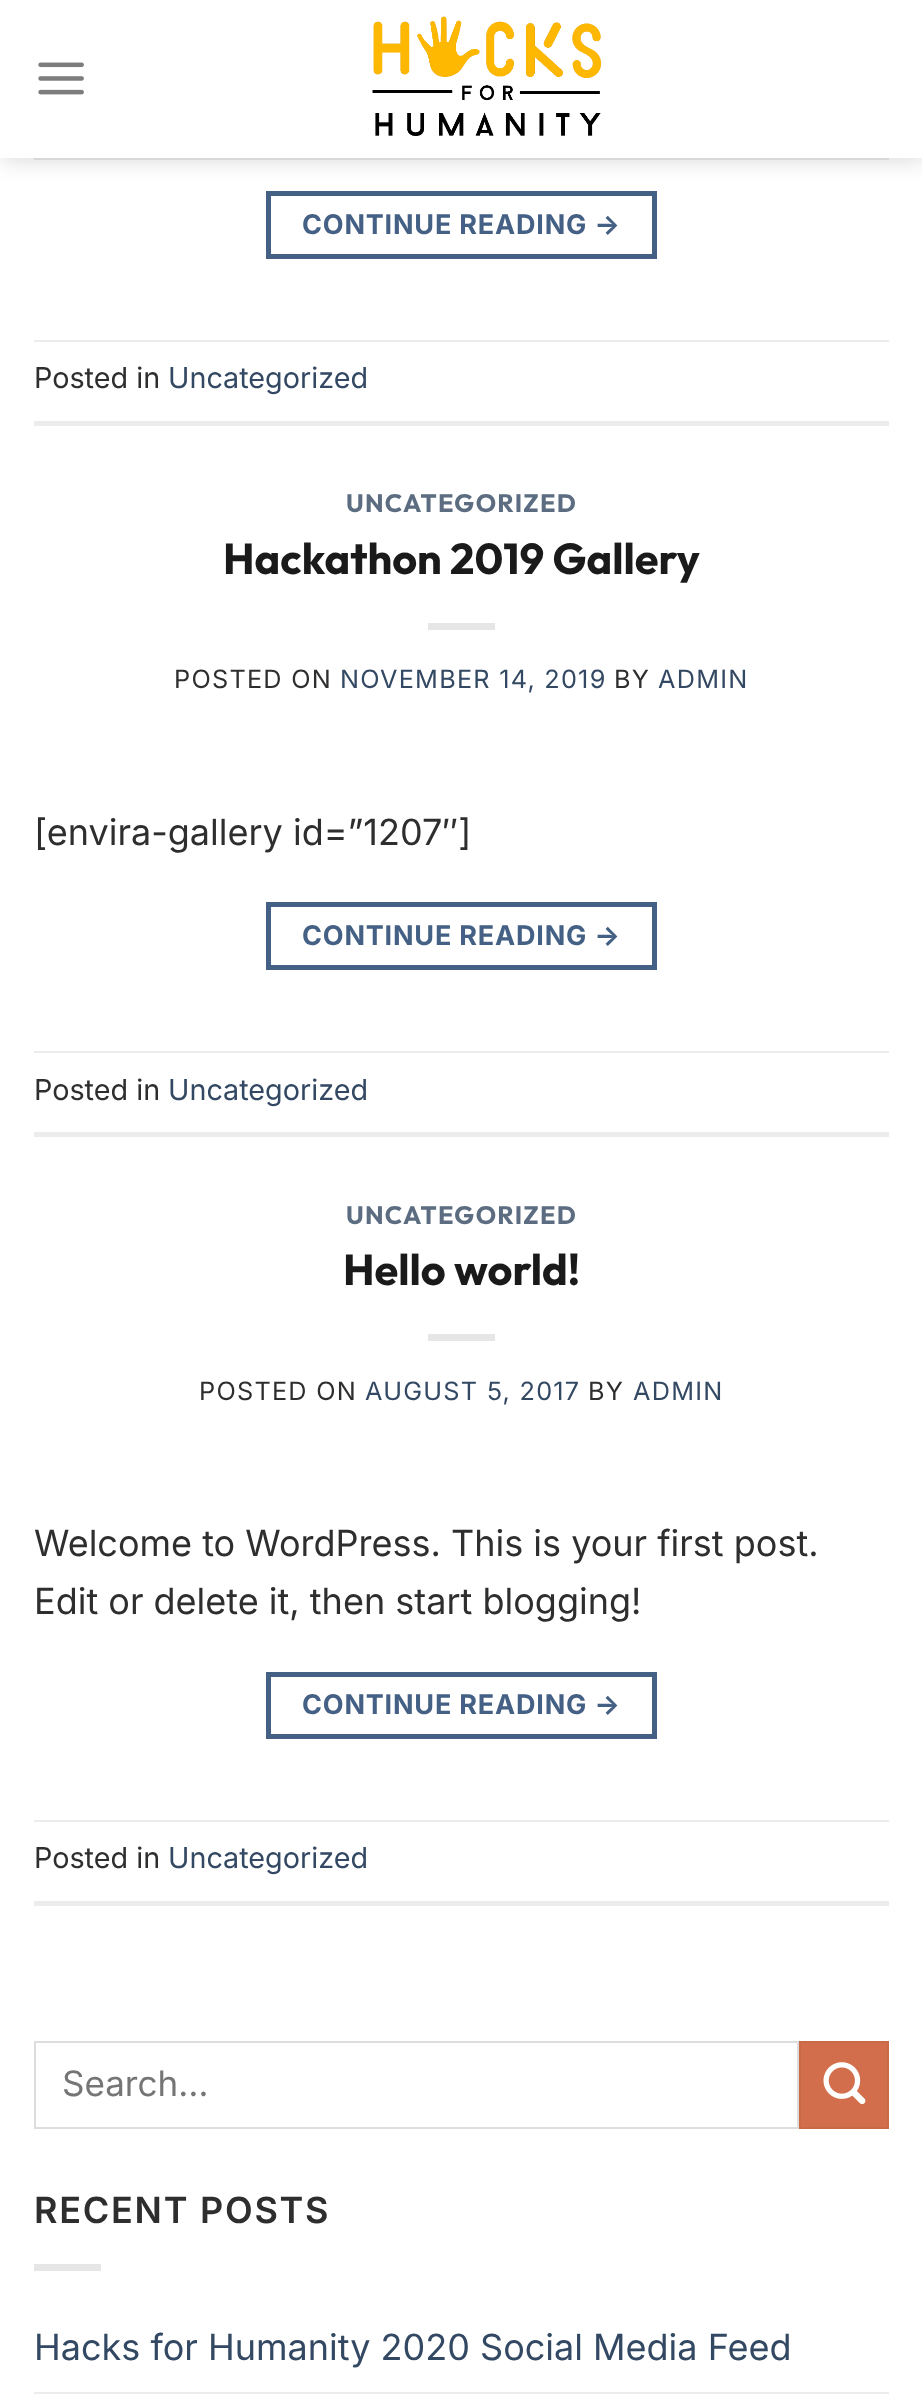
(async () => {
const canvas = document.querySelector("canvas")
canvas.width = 922
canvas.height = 2397
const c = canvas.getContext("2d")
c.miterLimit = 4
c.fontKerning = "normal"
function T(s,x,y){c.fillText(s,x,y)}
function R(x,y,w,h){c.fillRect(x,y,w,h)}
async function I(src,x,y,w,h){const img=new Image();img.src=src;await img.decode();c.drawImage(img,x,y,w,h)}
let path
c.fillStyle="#fff"
R(0,0,922,2397)
c.strokeStyle="#446084"
c.lineWidth=5
c.strokeRect(268.5,193.5,386,63)
c.save()
path = new Path2D("M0 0h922v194h-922zm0 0h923v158h-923z")
c.clip(path,"evenodd")
c.fillStyle="#00000026"
c.filter="blur(11px)"
c.beginPath()
c.rect(2,2,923,158)
c.fill()
c.filter="none"
c.restore()
await I("1.png",38,62,46,33)
await I("2.png",372,16,230,120)
c.fillStyle="#d8d8d8"
R(34,158,855,2)
c.fillStyle="#ffffffe6"
R(0,157,922,1)
c.letterSpacing="0.8px"
c.font="bold 27px Inter"
c.fillStyle="#446084"
T("CONTINUE READING →",302,234)
c.fillStyle="#ececec"
R(34,340,855,2)
R(34,421,855,5)
c.letterSpacing="0px"
c.font="28.75px Inter"
c.fillStyle="#2e2e2e"
T("Posted in",34,388)
c.fillStyle="#334862"
T("Uncategorized",168,388)
c.letterSpacing="1.25px"
c.font="bold 25.25px Outfit"
c.fillStyle="#5c6d81"
T("UNCATEGORIZED",346,512)
c.letterSpacing="0px"
c.font="bold 43.25px Outfit"
c.fillStyle="#1a1a1a"
T("Hackathon 2019 Gallery",223,574)
c.fillStyle="#e6e6e6"
R(428,623,67,7)
c.letterSpacing="1.25px"
c.font="25.25px Inter"
c.fillStyle="#2e2e2e"
T("POSTED ON",174,688)
c.fillStyle="#334862"
T("NOVEMBER 14, 2019",340,688)
c.fillStyle="#2e2e2e"
T("BY",614,688)
c.fillStyle="#334862"
T("ADMIN",658,688)
c.letterSpacing="0px"
c.font="36px Inter"
c.fillStyle="#2e2e2e"
T("[envira-gallery id=”1207″]",34,845)
c.strokeRect(268.5,904.5,386,63)
c.letterSpacing="0.8px"
c.font="bold 27px Inter"
c.fillStyle="#446084"
T("CONTINUE READING →",302,945)
c.fillStyle="#ececec"
R(34,1051,855,2)
R(34,1132,855,5)
c.letterSpacing="0px"
c.font="28.75px Inter"
c.fillStyle="#2e2e2e"
T("Posted in",34,1100)
c.fillStyle="#334862"
T("Uncategorized",168,1100)
c.letterSpacing="1.25px"
c.font="bold 25.25px Outfit"
c.fillStyle="#5c6d81"
T("UNCATEGORIZED",346,1224)
c.letterSpacing="0px"
c.font="bold 43.25px Outfit"
c.fillStyle="#1a1a1a"
T("Hello world!",343,1285)
c.fillStyle="#e6e6e6"
R(428,1334,67,7)
c.letterSpacing="1.25px"
c.font="25.25px Inter"
c.fillStyle="#2e2e2e"
T("POSTED ON",199,1400)
c.fillStyle="#334862"
T("AUGUST 5, 2017",365,1400)
c.fillStyle="#2e2e2e"
T("BY",588,1400)
c.fillStyle="#334862"
T("ADMIN",633,1400)
c.letterSpacing="0px"
c.font="36px Inter"
c.fillStyle="#2e2e2e"
T("Welcome to WordPress. This is your first post.",34,1556)
T("Edit or delete it, then start blogging!",34,1614)
c.strokeRect(268.5,1674.5,386,62)
c.letterSpacing="0.8px"
c.font="bold 27px Inter"
c.fillStyle="#446084"
T("CONTINUE READING →",302,1714)
c.fillStyle="#ececec"
R(34,1820,855,2)
R(34,1901,855,5)
c.letterSpacing="0px"
c.font="28.75px Inter"
c.fillStyle="#2e2e2e"
T("Posted in",34,1868)
c.fillStyle="#334862"
T("Uncategorized",168,1868)
c.strokeStyle="#ddd"
c.lineWidth=2
c.strokeRect(35,2042,763,86)
c.font="35px Inter"
c.fillStyle="#757575"
T("Search…",62,2096)
c.fillStyle="#d26e4b"
c.beginPath()
c.rect(800,2042,88,86)
c.fill()
c.strokeStyle="#c86947"
c.stroke()
await I("3.png",823,2062,43,43)
c.letterSpacing="1.75px"
c.font="600 36px Inter"
c.fillStyle="#2e2e2e"
T("RECENT POSTS",34,2223)
c.fillStyle="#e6e6e6"
R(34,2264,67,7)
c.letterSpacing="0px"
c.font="36px Inter"
c.fillStyle="#334862"
T("Hacks for Humanity 2020 Social Media Feed",34,2360)
c.fillStyle="#ececec"
R(34,2392,855,2)
})()
